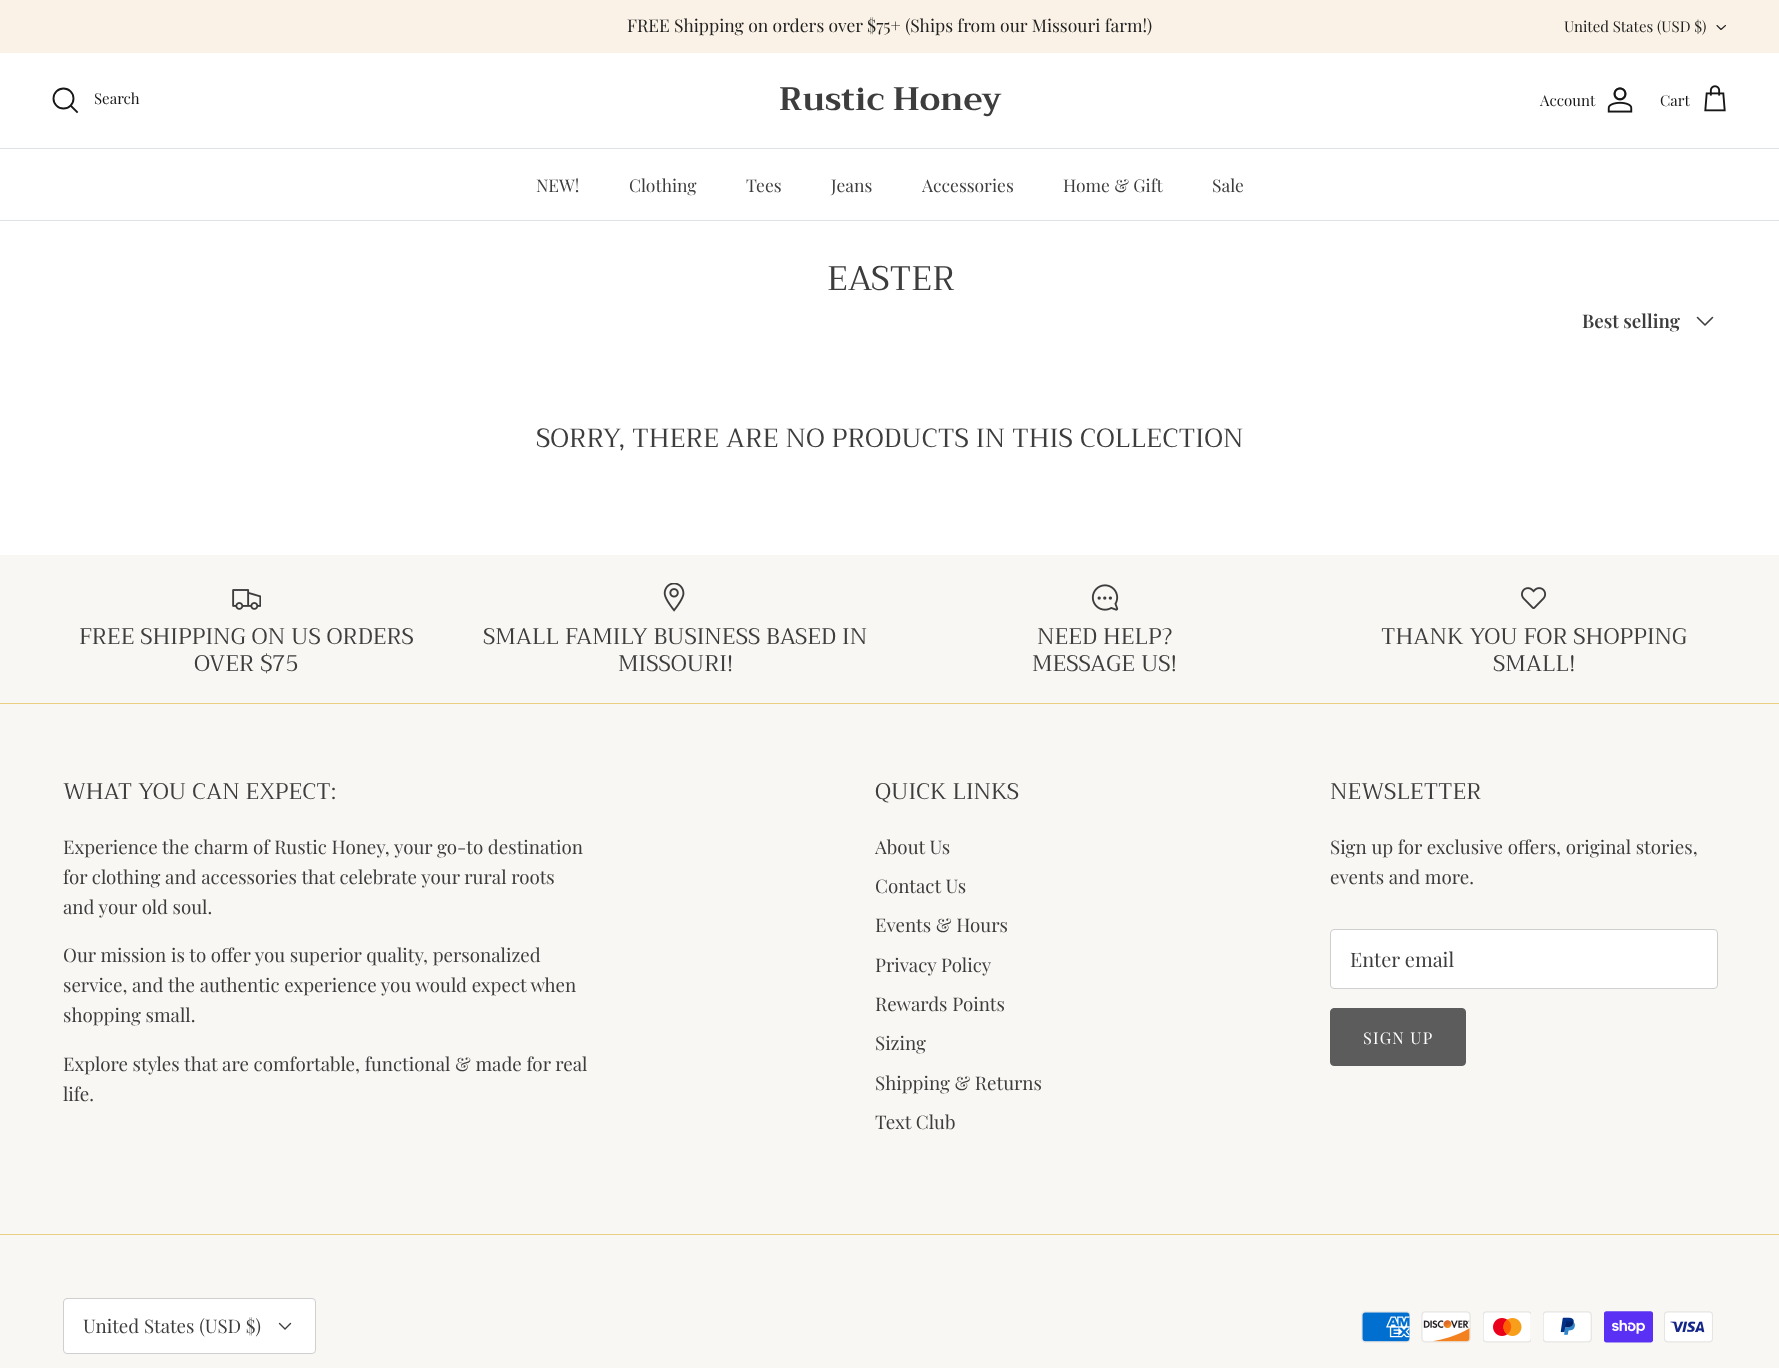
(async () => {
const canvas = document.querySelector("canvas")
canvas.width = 1779
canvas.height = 1368
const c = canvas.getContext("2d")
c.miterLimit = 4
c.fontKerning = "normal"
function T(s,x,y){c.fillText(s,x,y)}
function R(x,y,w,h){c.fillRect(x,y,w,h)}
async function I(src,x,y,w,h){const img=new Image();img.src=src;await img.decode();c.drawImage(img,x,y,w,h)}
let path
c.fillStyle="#fff"
R(0,0,1779,1368)
c.fillStyle="#faf2e6"
R(0,0,1779,53)
c.font="17.5px Playfair Display"
c.fillStyle="#212121"
T("FREE Shipping on orders over $75+ (Ships from our Missouri farm!)",627,32)
c.font="15px Playfair Display"
T("United States (USD $)",1564,32)
path = new Path2D("M1717 25.5l4 4l4.5-4")
c.strokeStyle="#212121"
c.lineWidth=1.1
c.lineCap="round"
c.lineJoin="round"
c.stroke(path)
c.fillStyle="#dfe3e8"
R(0,148,1779,1)
c.beginPath()
c.arc(63.5,98.5,10,0,7)
c.strokeStyle="#171717"
c.lineWidth=1.9
c.stroke()
c.fillStyle="#171717"
T("Search",94,104)
path = new Path2D("M71 106l6 6")
c.lineCap="square"
c.lineJoin="miter"
c.stroke(path)
c.font="bold 32.5px Trirong"
c.fillStyle="#3d3d3d"
T("Rustic Honey",779,110)
c.font="15px Playfair Display"
c.fillStyle="#171717"
T("Account",1540,106)
await I("1.png",1607,87,26,26)
T("Cart",1660,106)
await I("2.png",1704,85,22,27)
c.fillStyle="#dfe3e8"
R(0,220,1779,1)
c.font="17.5px Playfair Display"
c.fillStyle="#3d3d3d"
T("NEW!",536,192)
T("Clothing",629,192)
T("Tees",746,192)
T("Jeans",831,192)
T("Accessories",922,192)
T("Home & Gift",1063,192)
T("Sale",1212,192)
c.font="34px Trirong"
T("EASTER",827,290)
c.font="600 18.75px Playfair Display"
T("Best selling",1582,328)
path = new Path2D("M1697.5 317.5l7.5 7.5l7.5-7.5")
c.strokeStyle="#3d3d3d"
c.lineWidth=1.6
c.lineCap="round"
c.lineJoin="round"
c.stroke(path)
c.font="26.25px Trirong"
T("SORRY, THERE ARE NO PRODUCTS IN THIS COLLECTION",536,447)
c.fillStyle="#f8f7f4"
R(0,555,1779,813)
await I("3.png",232,589,29,21)
c.font="22.5px Trirong"
c.fillStyle="#3d3d3d"
T("FREE SHIPPING ON US ORDERS",79,644)
T("OVER $75",194,671)
await I("4.png",663,583,22,29)
T("SMALL FAMILY BUSINESS BASED IN",483,644)
T("MISSOURI!",618,671)
await I("5.png",1091,584,28,27)
T("NEED HELP?",1037,644)
T("MESSAGE US!",1032,671)
await I("6.png",1521,587,26,22)
T("THANK YOU FOR SHOPPING",1381,644)
T("SMALL!",1493,671)
c.fillStyle="#ebcf81"
R(0,703,1779,1)
c.fillStyle="#3d3d3d"
T("WHAT YOU CAN EXPECT:",63,799)
c.font="18.75px Playfair Display"
T("Experience the charm of Rustic Honey, your go-to destination",63,854)
T("for clothing and accessories that celebrate your rural roots",63,884)
T("and your old soul.",63,914)
T("Our mission is to offer you superior quality, personalized",63,962)
T("service, and the authentic experience you would expect when",63,992)
T("shopping small.",63,1022)
T("Explore styles that are comfortable, functional & made for real",63,1071)
T("life.",63,1101)
c.font="22.5px Trirong"
T("QUICK LINKS",875,799)
c.font="18.75px Playfair Display"
T("About Us",875,854)
T("Contact Us",875,893)
T("Events & Hours",875,932)
T("Privacy Policy",875,972)
T("Rewards Points",875,1011)
T("Sizing",875,1050)
T("Shipping & Returns",875,1090)
T("Text Club",875,1129)
c.font="22.5px Trirong"
T("NEWSLETTER",1330,799)
c.font="18.75px Playfair Display"
T("Sign up for exclusive offers, original stories,",1330,854)
T("events and more.",1330,884)
c.fillStyle="#fff"
c.beginPath()
c.roundRect(1330.5,929.5,387,59,3.5)
c.fill()
c.strokeStyle="#cfcfcf"
c.lineWidth=1
c.lineJoin="miter"
c.stroke()
c.font="20px Playfair Display"
c.fillStyle="#3d3d3d"
T("Enter email",1350,967)
c.fillStyle="#5c5c5c"
c.beginPath()
c.roundRect(1330.5,1008.5,135,57,3.5)
c.fill()
c.strokeStyle="#5c5c5c"
c.stroke()
c.letterSpacing="1.25px"
c.font="16.25px Playfair Display"
c.fillStyle="#fff"
T("SIGN UP",1363,1044)
c.fillStyle="#ebcf81"
R(0,1234,1779,1)
c.fillStyle="#fff"
c.beginPath()
c.roundRect(63.5,1298.5,252,55,3.5)
c.fill()
c.strokeStyle="#cfcfcf"
c.stroke()
c.letterSpacing="0px"
c.font="18.75px Playfair Display"
c.fillStyle="#3d3d3d"
T("United States (USD $)",83,1333)
path = new Path2D("M279.5 1323.5l5.5 5.5l5.5-5.5")
c.strokeStyle="#3d3d3d"
c.lineWidth=1.4
c.lineJoin="round"
c.stroke(path)
await I("7.png",1361,1311,49,32)
await I("8.png",1421,1311,50,32)
await I("9.png",1483,1311,48,32)
await I("10.png",1543,1311,49,32)
await I("11.png",1604,1311,49,32)
await I("12.png",1664,1311,49,32)
})()
